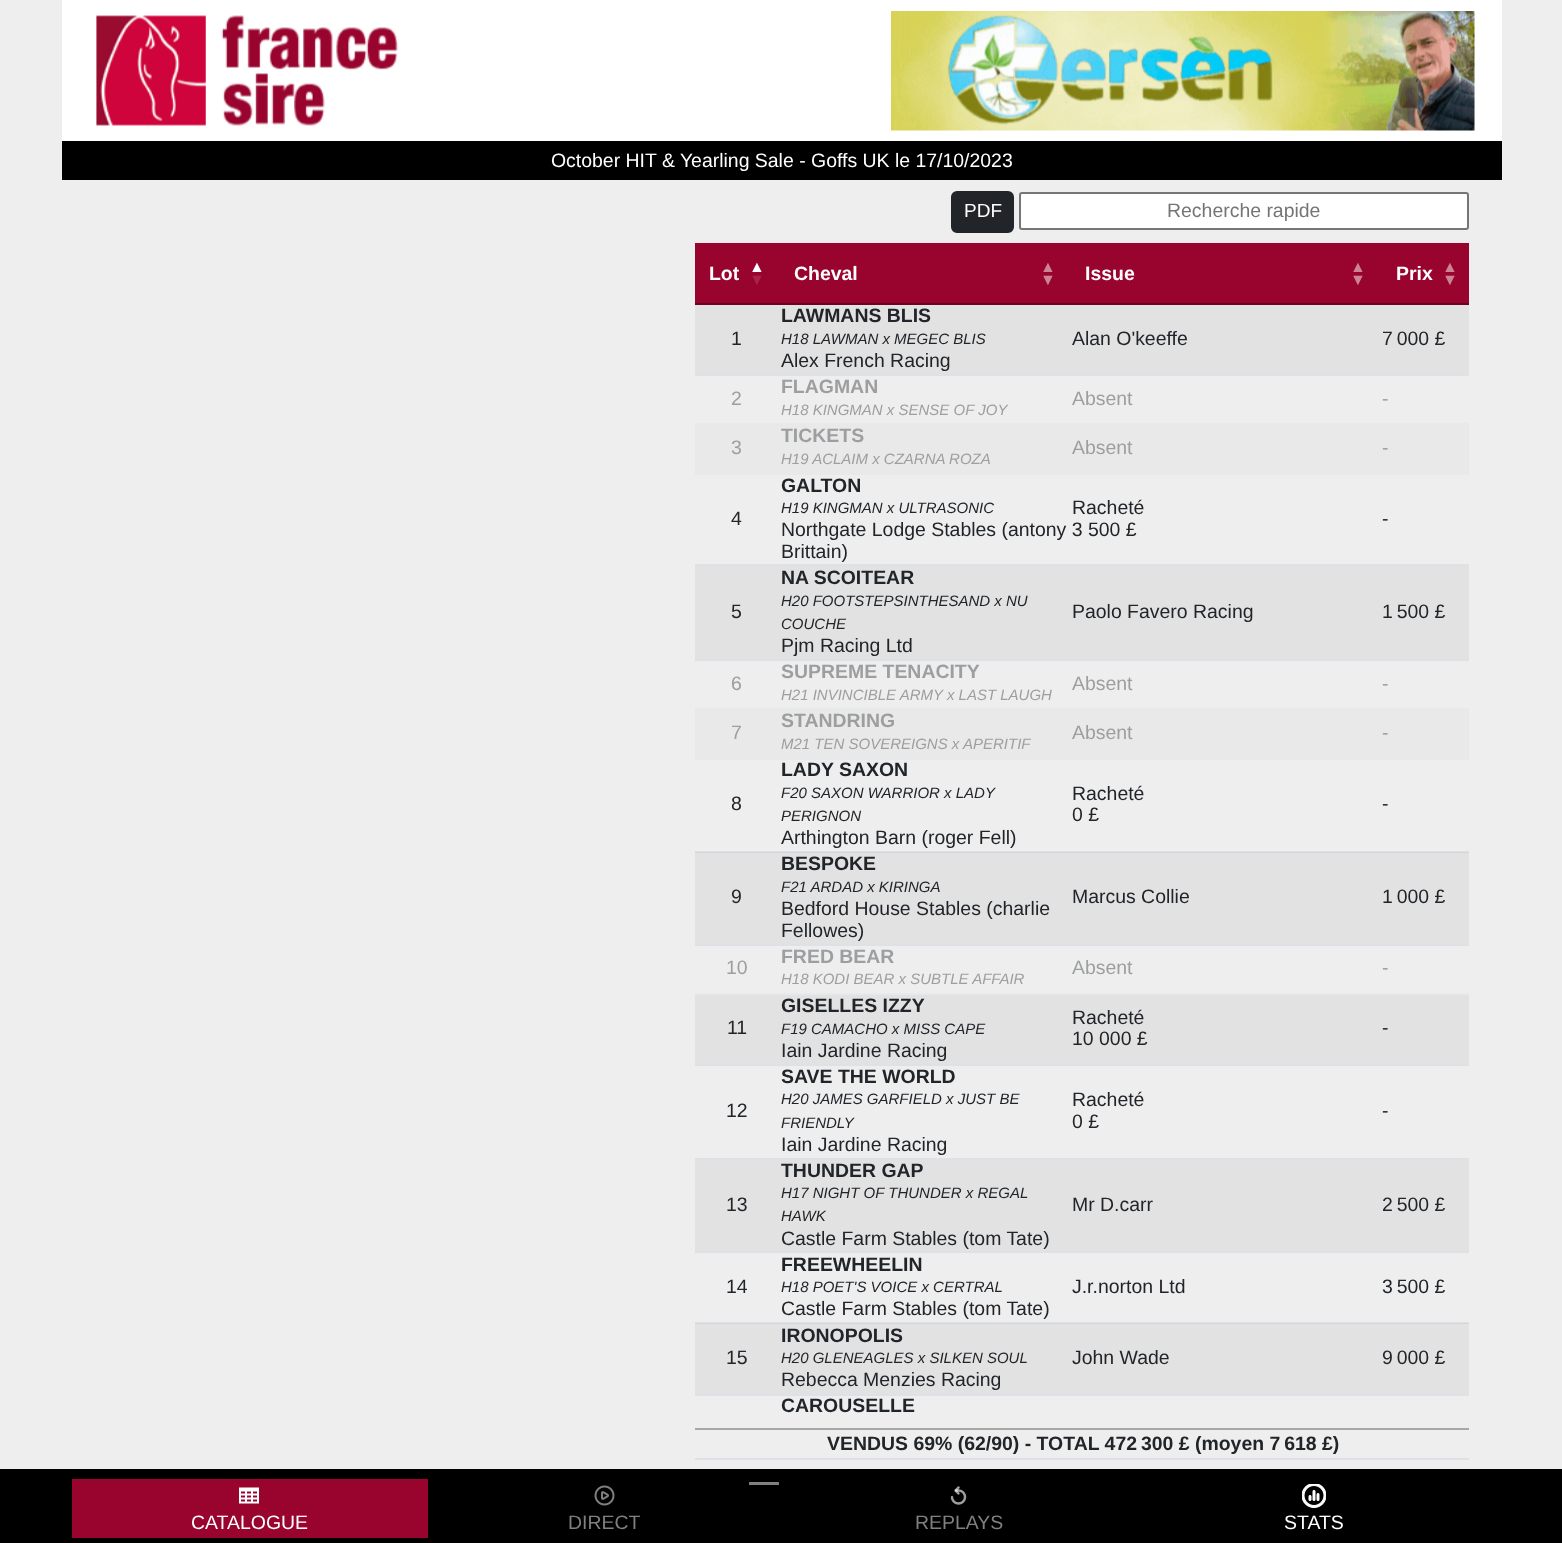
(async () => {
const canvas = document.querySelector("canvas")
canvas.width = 1562
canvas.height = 1543
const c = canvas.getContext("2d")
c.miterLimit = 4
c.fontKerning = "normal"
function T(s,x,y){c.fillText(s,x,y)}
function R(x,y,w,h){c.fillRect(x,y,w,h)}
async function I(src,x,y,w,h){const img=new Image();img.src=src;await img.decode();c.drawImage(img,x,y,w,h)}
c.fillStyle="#eee"
R(0,0,1562,1543)
c.fillStyle="#e2e2e2"
R(695,1324,774,70)
R(695,853,774,91)
c.fillStyle="#fff"
R(62,0,1440,141)
await I("1.png",96,15,303,111)
await I("2.png",891,11,584,120)
c.fillStyle="#000"
R(62,141,1440,39)
c.font="19.45px Liberation Sans"
c.fillStyle="#fff"
T("October HIT & Yearling Sale - Goffs UK le 17/10/2023",551,167)
c.fillStyle="#212529"
c.beginPath()
c.roundRect(952,192,61,40,5)
c.fill()
c.strokeStyle="#212529"
c.lineWidth=2
c.stroke()
c.font="19px Liberation Sans"
c.fillStyle="#fff"
T("PDF",964,217)
c.beginPath()
c.roundRect(1020,193,448,36,2)
c.fill()
c.strokeStyle="#767676"
c.stroke()
c.font="19.45px Liberation Sans"
c.fillStyle="#757575"
T("Recherche rapide",1167,217)
c.fillStyle="#99042f"
R(695,243,774,60)
c.fillStyle="#6b0321"
R(695,303,774,2)
c.font="bold 19.45px Liberation Sans"
c.fillStyle="#fff"
T("Lot",709,280)
c.font="bold 16px Liberation Sans"
T("▲",749,272)
c.fillStyle="#a62349"
T("▼",749,285)
c.font="bold 19.45px Liberation Sans"
c.fillStyle="#fff"
T("Cheval",794,280)
c.font="bold 16px Liberation Sans"
c.fillStyle="#cc8297"
T("▲",1040,272)
T("▼",1040,285)
c.font="bold 19.45px Liberation Sans"
c.fillStyle="#fff"
T("Issue",1085,280)
c.font="bold 16px Liberation Sans"
c.fillStyle="#cc8297"
T("▲",1350,272)
T("▼",1350,285)
c.font="bold 19.45px Liberation Sans"
c.fillStyle="#fff"
T("Prix",1396,280)
c.font="bold 16px Liberation Sans"
c.fillStyle="#cc8297"
T("▲",1442,272)
T("▼",1442,285)
c.fillStyle="#e2e2e2"
R(695,305,774,69)
c.fillStyle="#dee2e6"
R(695,374,774,2)
c.font="19.45px Liberation Sans"
c.fillStyle="#212529"
T("1",731,345)
c.font="bold 19.45px Liberation Sans"
T("LAWMANS BLIS",781,322)
c.font="italic 15px Liberation Sans"
T("H18 LAWMAN x MEGEC BLIS",781,344)
c.font="19.45px Liberation Sans"
T("Alex French Racing",781,367)
T("Alan O'keeffe",1072,345)
T("7 000 £",1382,345)
c.fillStyle="#e8e9eb"
R(695,423,774,2)
c.fillStyle="#9c9e9f"
T("2",731,405)
c.font="bold 19.45px Liberation Sans"
T("FLAGMAN",781,393)
c.font="italic 15px Liberation Sans"
T("H18 KINGMAN x SENSE OF JOY",781,415)
c.font="19.45px Liberation Sans"
T("Absent",1072,405)
T("-",1382,405)
c.fillStyle="#e9e9e9"
R(695,425,774,48)
c.fillStyle="#e8e9eb"
R(695,473,774,2)
c.fillStyle="#9c9e9f"
T("3",731,454)
c.font="bold 19.45px Liberation Sans"
T("TICKETS",781,442)
c.font="italic 15px Liberation Sans"
T("H19 ACLAIM x CZARNA ROZA",781,464)
c.font="19.45px Liberation Sans"
T("Absent",1072,454)
T("-",1382,454)
c.font="bold 19.45px Liberation Sans"
c.fillStyle="#212529"
T("GALTON",781,492)
c.font="italic 15px Liberation Sans"
T("H19 KINGMAN x ULTRASONIC",781,513)
c.font="19.45px Liberation Sans"
T("Northgate Lodge Stables (antony 3 500 £",781,536)
T("Brittain)",781,558)
T("Racheté",1072,514)
c.fillStyle="#dee2e6"
R(695,564,774,2)
c.fillStyle="#212529"
T("4",731,525)
T("-",1382,525)
c.fillStyle="#e2e2e2"
R(695,566,774,93)
c.fillStyle="#dee2e6"
R(695,659,774,2)
c.fillStyle="#212529"
T("5",731,618)
c.font="bold 19.45px Liberation Sans"
T("NA SCOITEAR",781,584)
c.font="italic 15px Liberation Sans"
T("H20 FOOTSTEPSINTHESAND x NU",781,606)
T("COUCHE",781,629)
c.font="19.45px Liberation Sans"
T("Pjm Racing Ltd",781,652)
T("Paolo Favero Racing",1072,618)
T("1 500 £",1382,618)
c.fillStyle="#e8e9eb"
R(695,708,774,2)
c.fillStyle="#9c9e9f"
T("6",731,690)
c.font="bold 19.45px Liberation Sans"
T("SUPREME TENACITY",781,678)
c.font="italic 15px Liberation Sans"
T("H21 INVINCIBLE ARMY x LAST LAUGH",781,700)
c.font="19.45px Liberation Sans"
T("Absent",1072,690)
T("-",1382,690)
c.fillStyle="#e9e9e9"
R(695,710,774,48)
c.fillStyle="#e8e9eb"
R(695,758,774,2)
c.fillStyle="#9c9e9f"
T("7",731,739)
c.font="bold 19.45px Liberation Sans"
T("STANDRING",781,727)
c.font="italic 15px Liberation Sans"
T("M21 TEN SOVEREIGNS x APERITIF",781,749)
c.font="19.45px Liberation Sans"
T("Absent",1072,739)
T("-",1382,739)
c.fillStyle="#dee2e6"
R(695,851,774,1)
c.fillStyle="#d3d7db"
R(695,852,774,1)
c.fillStyle="#212529"
T("8",731,810)
c.font="bold 19.45px Liberation Sans"
T("LADY SAXON",781,776)
c.font="italic 15px Liberation Sans"
T("F20 SAXON WARRIOR x LADY",781,798)
T("PERIGNON",781,821)
c.font="19.45px Liberation Sans"
T("Arthington Barn (roger Fell)",781,844)
T("Racheté",1072,800)
T("0 £",1072,821)
T("-",1382,810)
c.fillStyle="#dee2e6"
R(695,944,774,2)
c.fillStyle="#212529"
T("9",731,903)
c.font="bold 19.45px Liberation Sans"
T("BESPOKE",781,870)
c.font="italic 15px Liberation Sans"
T("F21 ARDAD x KIRINGA",781,892)
c.font="19.45px Liberation Sans"
T("Bedford House Stables (charlie",781,915)
T("Fellowes)",781,937)
T("Marcus Collie",1072,903)
T("1 000 £",1382,903)
c.fillStyle="#e8e9eb"
R(695,993,774,2)
c.fillStyle="#9c9e9f"
T("10",726,974)
c.font="bold 19.45px Liberation Sans"
T("FRED BEAR",781,963)
c.font="italic 15px Liberation Sans"
T("H18 KODI BEAR x SUBTLE AFFAIR",781,984)
c.font="19.45px Liberation Sans"
T("Absent",1072,974)
T("-",1382,974)
c.fillStyle="#e2e2e2"
R(695,995,774,69)
c.fillStyle="#dee2e6"
R(695,1064,774,2)
c.fillStyle="#212529"
T("11",727,1034)
c.font="bold 19.45px Liberation Sans"
T("GISELLES IZZY",781,1012)
c.font="italic 15px Liberation Sans"
T("F19 CAMACHO x MISS CAPE",781,1034)
c.font="19.45px Liberation Sans"
T("Iain Jardine Racing",781,1057)
T("Racheté",1072,1024)
T("10 000 £",1072,1045)
T("-",1382,1034)
c.fillStyle="#dee2e6"
R(695,1158,774,2)
c.fillStyle="#212529"
T("12",726,1117)
c.font="bold 19.45px Liberation Sans"
T("SAVE THE WORLD",781,1083)
c.font="italic 15px Liberation Sans"
T("H20 JAMES GARFIELD x JUST BE",781,1104)
T("FRIENDLY",781,1128)
c.font="19.45px Liberation Sans"
T("Iain Jardine Racing",781,1151)
T("Racheté",1072,1106)
T("0 £",1072,1128)
T("-",1382,1117)
c.fillStyle="#e2e2e2"
R(695,1160,774,91)
c.fillStyle="#dee2e6"
R(695,1251,774,2)
c.fillStyle="#212529"
T("13",726,1211)
c.font="bold 19.45px Liberation Sans"
T("THUNDER GAP",781,1177)
c.font="italic 15px Liberation Sans"
T("H17 NIGHT OF THUNDER x REGAL",781,1198)
T("HAWK",781,1221)
c.font="19.45px Liberation Sans"
T("Castle Farm Stables (tom Tate)",781,1245)
T("Mr D.carr",1072,1211)
T("2 500 £",1382,1211)
c.fillStyle="#dee2e6"
R(695,1322,774,1)
c.fillStyle="#d3d7db"
R(695,1323,774,1)
c.fillStyle="#212529"
T("14",726,1293)
c.font="bold 19.45px Liberation Sans"
T("FREEWHEELIN",781,1271)
c.font="italic 15px Liberation Sans"
T("H18 POET'S VOICE x CERTRAL",781,1292)
c.font="19.45px Liberation Sans"
T("Castle Farm Stables (tom Tate)",781,1315)
T("J.r.norton Ltd",1072,1293)
T("3 500 £",1382,1293)
c.fillStyle="#dee2e6"
R(695,1394,774,2)
c.fillStyle="#212529"
T("15",726,1364)
c.font="bold 19.45px Liberation Sans"
T("IRONOPOLIS",781,1342)
c.font="italic 15px Liberation Sans"
T("H20 GLENEAGLES x SILKEN SOUL",781,1363)
c.font="19.45px Liberation Sans"
T("Rebecca Menzies Racing",781,1386)
T("John Wade",1072,1364)
T("9 000 £",1382,1364)
c.font="bold 19.45px Liberation Sans"
T("CAROUSELLE",781,1412)
c.fillStyle="#a7a7a7"
R(695,1428,774,2)
c.fillStyle="#dee2e6"
R(695,1458,774,2)
c.fillStyle="#212529"
T("VENDUS 69% (62/90) - TOTAL 472 300 £ (moyen 7 618 £)",827,1450)
c.fillStyle="#000"
R(0,1469,1562,74)
c.fillStyle="#99042f"
R(72,1479,356,59)
await I("3.png",239,1487,20,17)
c.font="19.45px Liberation Sans"
c.fillStyle="#fff"
T("CATALOGUE",191,1529)
c.fillStyle="#808080"
R(749,1482,30,3)
await I("4.png",594,1485,21,21)
T("DIRECT",568,1529)
await I("5.png",950,1486,17,19)
T("REPLAYS",915,1529)
await I("6.png",1302,1484,24,24)
c.fillStyle="#fff"
T("STATS",1284,1529)
})()
